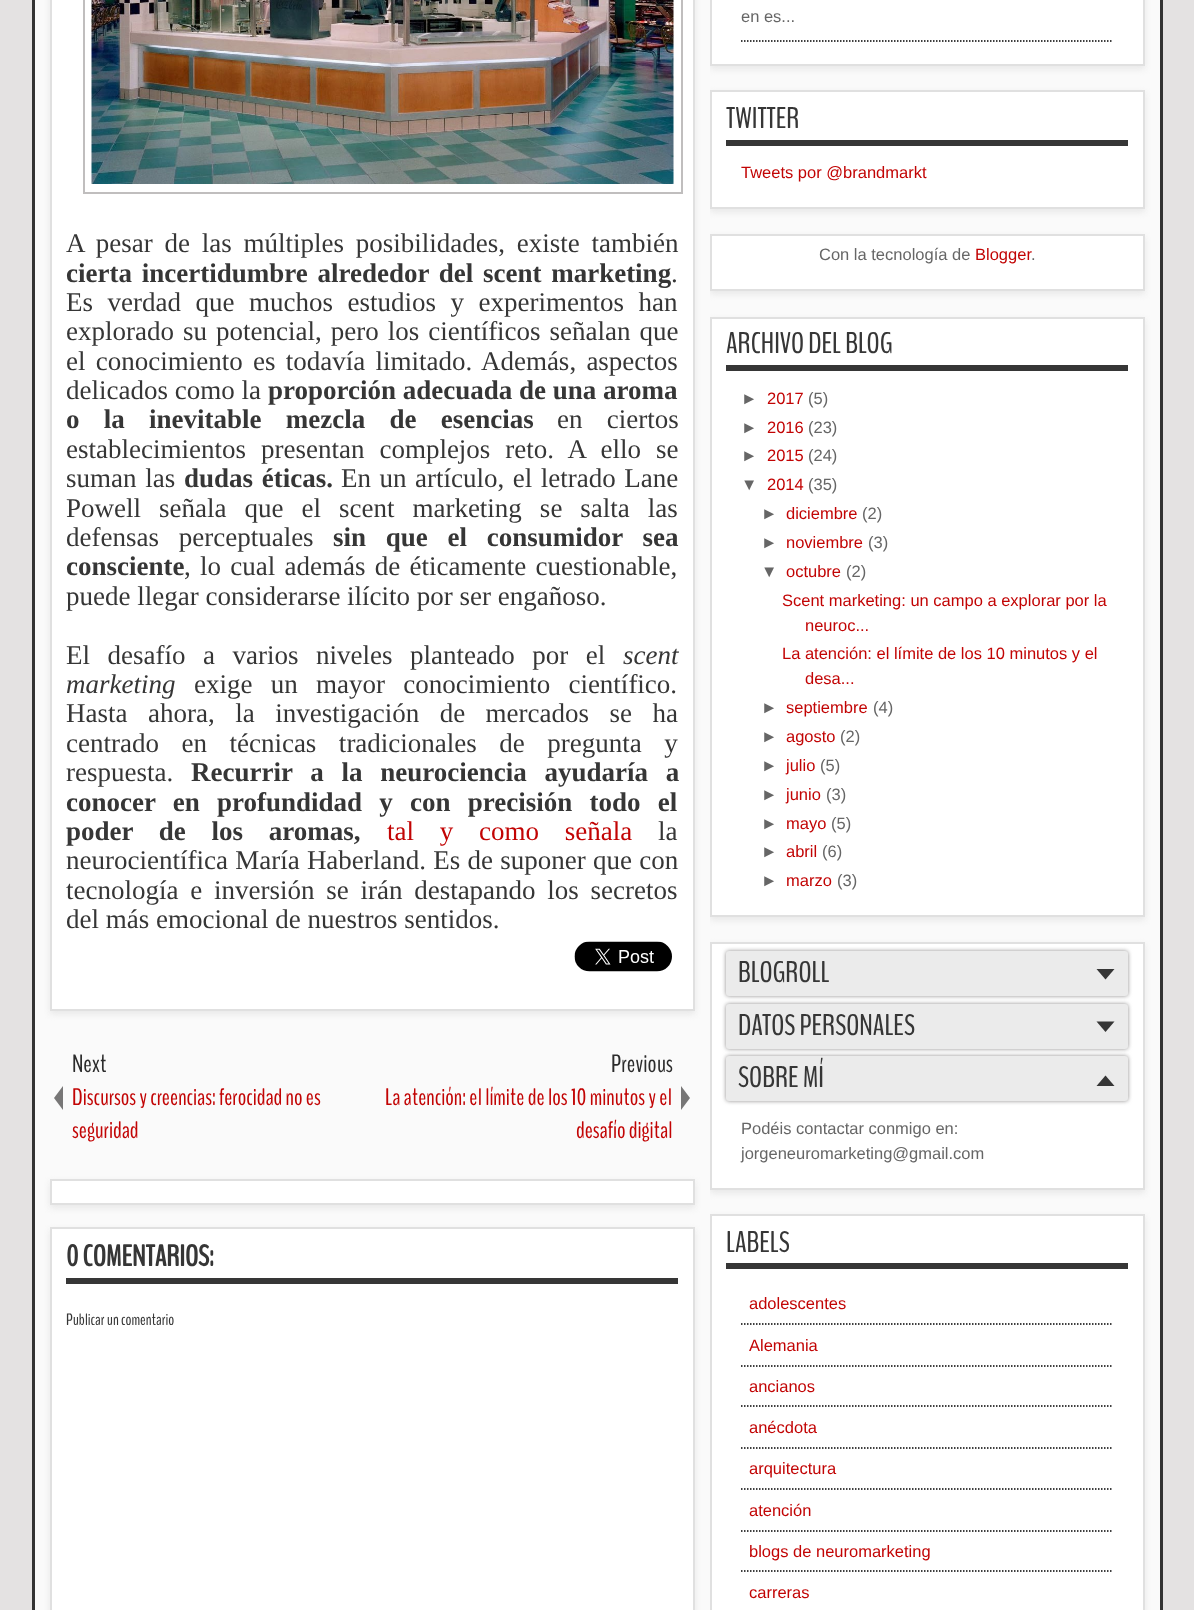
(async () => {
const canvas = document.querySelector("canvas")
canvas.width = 1194
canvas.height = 1610
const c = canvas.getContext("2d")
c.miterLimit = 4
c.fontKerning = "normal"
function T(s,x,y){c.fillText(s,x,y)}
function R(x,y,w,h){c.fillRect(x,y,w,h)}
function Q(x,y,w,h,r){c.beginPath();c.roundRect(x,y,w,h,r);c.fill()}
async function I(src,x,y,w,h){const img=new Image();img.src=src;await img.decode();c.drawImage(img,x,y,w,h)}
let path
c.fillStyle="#e4e2e2"
R(0,0,1194,1610)
c.fillStyle="#fafafa"
R(35,0,1125,1610)
c.fillStyle="#333"
R(1160,0,3,1610)
R(32,0,3,1610)
c.fillStyle="#e7e7e7"
c.filter="blur(3px)"
c.beginPath()
c.rect(50,-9,645,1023)
c.fill()
c.filter="none"
c.fillStyle="#fff"
c.beginPath()
c.rect(51,-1,643,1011)
c.fill()
c.strokeStyle="#e0e0e0"
c.lineWidth=2
c.stroke()
c.strokeStyle="#c0bebe"
c.strokeRect(84,-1,598,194)
await I("1.png",91,0,583,184)
c.wordSpacing="5px"
c.font="27px Liberation Serif"
c.fillStyle="#363636"
T("A pesar de las múltiples posibilidades, existe también",66,252)
c.wordSpacing="3px"
c.font="bold 27px Liberation Serif"
T("cierta incertidumbre alrededor del scent marketing",66,282)
c.wordSpacing="0px"
c.font="27px Liberation Serif"
T(".",671,282)
c.wordSpacing="7.75px"
T("Es verdad que muchos estudios y experimentos han",66,311)
c.wordSpacing="2.25px"
T("explorado su potencial, pero los científicos señalan que",66,340)
c.wordSpacing="3.5px"
T("el conocimiento es todavía limitado. Además, aspectos",66,370)
c.wordSpacing="0px"
T("delicados como la",66,399)
c.font="bold 27px Liberation Serif"
T("proporción adecuada de una aroma",268,399)
c.wordSpacing="17.5px"
T("o la inevitable mezcla de esencias",66,428)
c.font="27px Liberation Serif"
T("en ciertos",557,428)
c.wordSpacing="8.25px"
T("establecimientos presentan complejos reto. A ello se",66,458)
c.wordSpacing="2px"
T("suman las",66,487)
c.font="bold 27px Liberation Serif"
T("dudas éticas.",184,487)
c.wordSpacing="1.75px"
c.font="27px Liberation Serif"
T("En un artículo, el letrado Lane",341,487)
c.wordSpacing="11.25px"
T("Powell señala que el scent marketing se salta las",66,517)
c.wordSpacing="13px"
T("defensas perceptuales",66,546)
c.font="bold 27px Liberation Serif"
T("sin que el consumidor sea",333,546)
c.wordSpacing="0px"
T("consciente",66,575)
c.wordSpacing="2.5px"
c.font="27px Liberation Serif"
T(", lo cual además de éticamente cuestionable,",184,575)
c.wordSpacing="0px"
T("puede llegar considerarse ilícito por ser engañoso.",66,605)
c.wordSpacing="10.75px"
T("El desafío a varios niveles planteado por el",66,664)
c.wordSpacing="0px"
c.font="italic 27px Liberation Serif"
T("scent",623,664)
T("marketing",66,693)
c.wordSpacing="11.5px"
c.font="27px Liberation Serif"
T("exige un mayor conocimiento científico.",194,693)
c.wordSpacing="13.75px"
T("Hasta ahora, la investigación de mercados se ha",66,722)
c.wordSpacing="15.75px"
T("centrado en técnicas tradicionales de pregunta y",66,752)
c.wordSpacing="0px"
T("respuesta.",66,781)
c.wordSpacing="11px"
c.font="bold 27px Liberation Serif"
T("Recurrir a la neurociencia ayudaría a",191,781)
c.wordSpacing="10.5px"
T("conocer en profundidad y con precisión todo el",66,811)
c.wordSpacing="19px"
T("poder de los aromas,",66,840)
c.font="27px Liberation Serif"
c.fillStyle="#c20404"
T("tal y como señala",387,840)
c.wordSpacing="0px"
c.fillStyle="#363636"
T("la",658,840)
c.wordSpacing="0.5px"
T("neurocientífica María Haberland. Es de suponer que con",66,869)
c.wordSpacing="5px"
T("tecnología e inversión se irán destapando los secretos",66,899)
c.wordSpacing="0px"
T("del más emocional de nuestros sentidos.",66,928)
await I("2.png",574,941,98,31)
c.font="25px BenchNine"
c.fillStyle="#2c2c2c"
T("Next",72,1072)
c.fillStyle="#777676"
path = new Path2D("M63 1086v24l-9-12z")
c.fill(path)
c.font="23.75px BenchNine"
c.fillStyle="#c20404"
T("Discursos y creencias: ferocidad no es",72,1105)
T("seguridad",72,1138)
c.font="25px BenchNine"
c.fillStyle="#2c2c2c"
T("Previous",611,1072)
c.font="23.75px BenchNine"
c.fillStyle="#c20404"
T("La atención: el límite de los 10 minutos y el",385,1105)
T("desafío digital",576,1138)
c.fillStyle="#777676"
path = new Path2D("M681 1110v-24l9 12z")
c.fill(path)
c.fillStyle="#e7e7e7"
c.filter="blur(3px)"
c.beginPath()
c.rect(50,1182,645,26)
c.fill()
c.filter="none"
c.fillStyle="#fff"
c.beginPath()
c.rect(51,1180,643,24)
c.fill()
c.strokeStyle="#e0e0e0"
c.stroke()
c.fillStyle="#e7e7e7"
c.filter="blur(3px)"
c.beginPath()
c.rect(50,1230,645,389)
c.fill()
c.filter="none"
c.fillStyle="#fff"
c.beginPath()
c.rect(51,1228,643,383)
c.fill()
c.stroke()
c.fillStyle="#363636"
R(66,1278,612,6)
c.font="bold 29.75px BenchNine"
T("0 COMENTARIOS:",66,1266)
c.font="16.5px BenchNine"
T("Publicar un comentario",66,1325)
c.save()
c.beginPath()
c.rect(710,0,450,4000)
c.clip()
c.fillStyle="#e7e7e7"
c.filter="blur(3px)"
c.beginPath()
c.rect(710,-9,435,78)
c.fill()
c.filter="none"
c.restore()
c.fillStyle="#fff"
c.beginPath()
c.rect(711,-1,433,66)
c.fill()
c.stroke()
path = new Path2D("M741 41h372")
c.strokeStyle="#000"
c.lineWidth=1.5
c.setLineDash([1.5,1.5])
c.stroke(path)
c.font="16.5px Liberation Sans"
c.fillStyle="#666"
T("en es...",741,22)
c.save()
c.beginPath()
c.rect(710,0,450,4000)
c.clip()
c.fillStyle="#e7e7e7"
c.filter="blur(3px)"
c.beginPath()
c.rect(710,93,435,119)
c.fill()
c.filter="none"
c.restore()
c.fillStyle="#fff"
c.beginPath()
c.rect(711,91,433,117)
c.fill()
c.strokeStyle="#e0e0e0"
c.lineWidth=2
c.setLineDash([])
c.stroke()
c.fillStyle="#363636"
R(726,140,402,6)
c.font="29.75px BenchNine"
T("TWITTER",726,128)
c.font="16.5px Liberation Sans"
c.fillStyle="#c20404"
T("Tweets por @brandmarkt",741,178)
c.save()
c.beginPath()
c.rect(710,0,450,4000)
c.clip()
c.fillStyle="#e7e7e7"
c.filter="blur(3px)"
c.beginPath()
c.rect(710,237,435,57)
c.fill()
c.filter="none"
c.restore()
c.fillStyle="#fff"
c.beginPath()
c.rect(711,235,433,55)
c.fill()
c.stroke()
c.fillStyle="#666"
T("Con la tecnología de",819,260)
c.fillStyle="#c20404"
T("Blogger",975,260)
c.fillStyle="#666"
T(".",1031,260)
c.save()
c.beginPath()
c.rect(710,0,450,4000)
c.clip()
c.fillStyle="#e7e7e7"
c.filter="blur(3px)"
c.beginPath()
c.rect(710,320,435,600)
c.fill()
c.filter="none"
c.restore()
c.fillStyle="#fff"
c.beginPath()
c.rect(711,318,433,598)
c.fill()
c.stroke()
c.fillStyle="#363636"
R(726,365,402,6)
c.font="29.75px BenchNine"
T("ARCHIVO DEL BLOG",726,353)
c.font="16.5px Liberation Sans"
c.fillStyle="#666"
T("►",741,404)
c.fillStyle="#c20404"
T("2017",767,404)
c.fillStyle="#666"
T("(5)",808,404)
T("►",741,433)
c.fillStyle="#c20404"
T("2016",767,433)
c.fillStyle="#666"
T("(23)",808,433)
T("►",741,461)
c.fillStyle="#c20404"
T("2015",767,461)
c.fillStyle="#666"
T("(24)",808,461)
T("▼",741,490)
c.fillStyle="#c20404"
T("2014",767,490)
c.fillStyle="#666"
T("(35)",808,490)
T("►",761,519)
c.fillStyle="#c20404"
T("diciembre",786,519)
c.fillStyle="#666"
T("(2)",862,519)
T("►",761,548)
c.fillStyle="#c20404"
T("noviembre",786,548)
c.fillStyle="#666"
T("(3)",868,548)
T("▼",761,577)
c.fillStyle="#c20404"
T("octubre",786,577)
c.fillStyle="#666"
T("(2)",846,577)
c.fillStyle="#c20404"
T("Scent marketing: un campo a explorar por la",782,606)
T("neuroc...",805,631)
T("La atención: el límite de los 10 minutos y el",782,659)
T("desa...",805,684)
c.fillStyle="#666"
T("►",761,713)
c.fillStyle="#c20404"
T("septiembre",786,713)
c.fillStyle="#666"
T("(4)",873,713)
T("►",761,742)
c.fillStyle="#c20404"
T("agosto",786,742)
c.fillStyle="#666"
T("(2)",840,742)
T("►",761,771)
c.fillStyle="#c20404"
T("julio",786,771)
c.fillStyle="#666"
T("(5)",820,771)
T("►",761,800)
c.fillStyle="#c20404"
T("junio",786,800)
c.fillStyle="#666"
T("(3)",826,800)
T("►",761,829)
c.fillStyle="#c20404"
T("mayo",786,829)
c.fillStyle="#666"
T("(5)",831,829)
T("►",761,857)
c.fillStyle="#c20404"
T("abril",786,857)
c.fillStyle="#666"
T("(6)",822,857)
T("►",761,886)
c.fillStyle="#c20404"
T("marzo",786,886)
c.fillStyle="#666"
T("(3)",837,886)
c.save()
c.beginPath()
c.rect(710,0,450,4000)
c.clip()
c.fillStyle="#e7e7e7"
c.filter="blur(3px)"
c.beginPath()
c.rect(710,945,435,248)
c.fill()
c.filter="none"
c.restore()
c.fillStyle="#fff"
c.beginPath()
c.rect(711,943,433,246)
c.fill()
c.stroke()
c.fillStyle="#8f8d8d"
c.filter="blur(2px)"
c.beginPath()
c.roundRect(726,951,402,45,3)
c.fill()
c.filter="none"
c.fillStyle="#ebebeb"
Q(726,951,402,45,3)
c.font="29.75px BenchNine"
c.fillStyle="#363636"
T("BLOGROLL",738,982)
path = new Path2D("M1096.5 969h18l-9 10.5z")
c.fill(path)
c.fillStyle="#8f8d8d"
c.filter="blur(2px)"
c.beginPath()
c.roundRect(726,1004,402,45,3)
c.fill()
c.filter="none"
c.fillStyle="#ebebeb"
Q(726,1004,402,45,3)
c.fillStyle="#363636"
T("DATOS PERSONALES",738,1035)
path = new Path2D("M1096.5 1021.5h18l-9 10.5z")
c.fill(path)
c.fillStyle="#8f8d8d"
c.filter="blur(2px)"
c.beginPath()
c.roundRect(726,1056,402,45,3)
c.fill()
c.filter="none"
c.fillStyle="#ebebeb"
Q(726,1056,402,45,3)
c.fillStyle="#363636"
T("SOBRE MÍ",738,1087)
path = new Path2D("M1114.5 1086h-18l9-10.5z")
c.fill(path)
c.font="16.5px Liberation Sans"
c.fillStyle="#666"
T("Podéis contactar conmigo en:",741,1134)
T("jorgeneuromarketing@gmail.com",741,1159)
c.save()
c.beginPath()
c.rect(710,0,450,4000)
c.clip()
c.fillStyle="#e7e7e7"
c.filter="blur(3px)"
c.beginPath()
c.rect(710,1217,435,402)
c.fill()
c.filter="none"
c.restore()
c.fillStyle="#fff"
c.beginPath()
c.rect(711,1215,433,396)
c.fill()
c.stroke()
c.fillStyle="#363636"
R(726,1263,402,6)
c.font="29.75px BenchNine"
T("LABELS",726,1252)
path = new Path2D("M741 1324h372")
c.strokeStyle="#000"
c.lineWidth=1.5
c.setLineDash([1.5,1.5])
c.stroke(path)
c.font="16.5px Liberation Sans"
c.fillStyle="#c20404"
T("adolescentes",749,1309)
path = new Path2D("M741 1366h372")
c.stroke(path)
T("Alemania",749,1351)
path = new Path2D("M741 1406h372")
c.stroke(path)
T("ancianos",749,1392)
path = new Path2D("M741 1448h372")
c.stroke(path)
T("anécdota",749,1433)
path = new Path2D("M741 1489h372")
c.stroke(path)
T("arquitectura",749,1474)
path = new Path2D("M741 1531h372")
c.stroke(path)
T("atención",749,1516)
path = new Path2D("M741 1571h372")
c.stroke(path)
T("blogs de neuromarketing",749,1557)
T("carreras",749,1598)
})()
